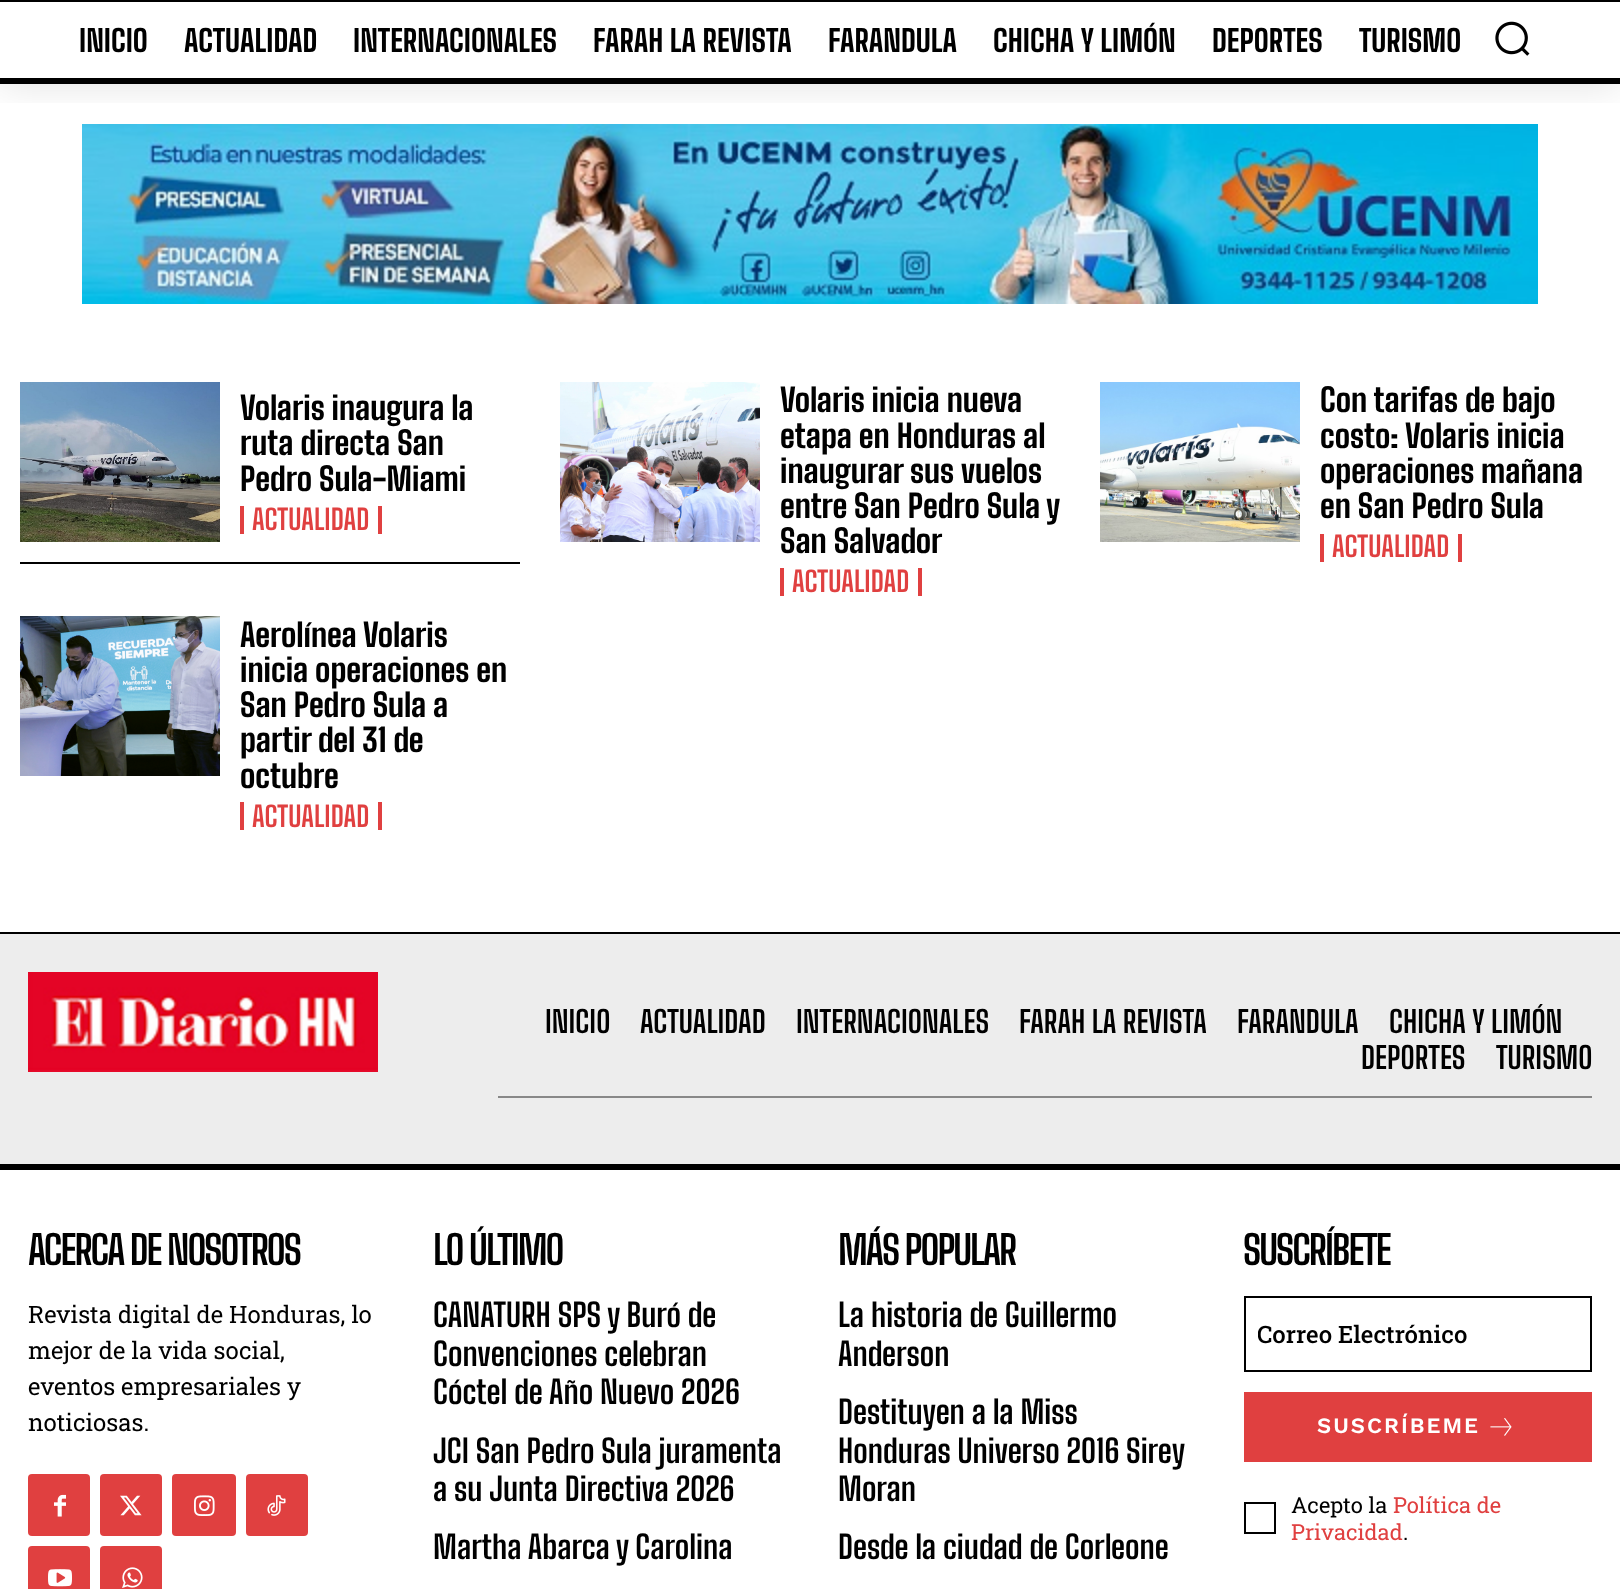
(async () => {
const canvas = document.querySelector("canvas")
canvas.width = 1620
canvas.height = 1589
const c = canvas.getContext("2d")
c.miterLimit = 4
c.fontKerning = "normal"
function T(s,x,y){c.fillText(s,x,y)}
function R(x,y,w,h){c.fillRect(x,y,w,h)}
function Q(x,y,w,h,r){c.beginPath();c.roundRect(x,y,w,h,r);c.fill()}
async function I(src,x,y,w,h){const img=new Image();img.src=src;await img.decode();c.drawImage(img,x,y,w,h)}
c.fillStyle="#fff"
R(0,0,1620,1589)
c.fillStyle="#000"
R(0,0,1620,2)
R(0,78,1620,6)
await I("2.png",82,124,1456,180)
c.save()
c.beginPath()
c.rect(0,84,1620,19)
c.clip()
c.fillStyle="#0000001f"
c.filter="blur(20px)"
c.beginPath()
c.rect(0,0,1620,84)
c.fill()
c.filter="none"
c.restore()
c.font="800 30px Big Shoulders Text"
T("INICIO",79,52)
T("ACTUALIDAD",184,52)
T("INTERNACIONALES",353,52)
T("FARAH LA REVISTA",593,52)
T("FARANDULA",828,52)
T("CHICHA Y LIMÓN",993,52)
T("DEPORTES",1212,52)
T("TURISMO",1359,52)
await I("1.png",1495,21,35,35)
R(20,562,500,2)
await I("3.png",20,382,200,160)
c.font="800 32px Big Shoulders Text"
T("Volaris inaugura la",240,420)
T("ruta directa San",240,455)
T("Pedro Sula-Miami",240,491)
c.fillStyle="#e04040"
R(378,506,4,28)
R(240,506,4,28)
c.font="bold 28px Big Shoulders Text"
T("ACTUALIDAD",252,530)
await I("4.png",560,382,200,160)
c.font="800 32px Big Shoulders Text"
c.fillStyle="#000"
T("Volaris inicia nueva",780,412)
T("etapa en Honduras al",780,448)
T("inaugurar sus vuelos",780,483)
T("entre San Pedro Sula y",780,518)
T("San Salvador",780,553)
c.fillStyle="#e04040"
R(918,568,4,28)
R(780,568,4,28)
c.font="bold 28px Big Shoulders Text"
T("ACTUALIDAD",792,592)
await I("5.png",1100,382,200,160)
c.font="800 32px Big Shoulders Text"
c.fillStyle="#000"
T("Con tarifas de bajo",1320,412)
T("costo: Volaris inicia",1320,448)
T("operaciones mañana",1320,483)
T("en San Pedro Sula",1320,518)
c.fillStyle="#e04040"
R(1458,534,4,28)
R(1320,534,4,28)
c.font="bold 28px Big Shoulders Text"
T("ACTUALIDAD",1332,557)
await I("6.png",20,616,200,160)
c.font="800 32px Big Shoulders Text"
c.fillStyle="#000"
T("Aerolínea Volaris",240,647)
T("inicia operaciones en",240,682)
T("San Pedro Sula a",240,717)
T("partir del 31 de",240,752)
T("octubre",240,788)
c.fillStyle="#e04040"
R(378,802,4,28)
R(240,802,4,28)
c.font="bold 28px Big Shoulders Text"
T("ACTUALIDAD",252,827)
c.fillStyle="#ededed"
R(0,934,1620,230)
c.fillStyle="#000"
R(0,932,1620,2)
R(0,1164,1620,6)
await I("7.png",28,972,350,100)
c.fillStyle="#888"
R(498,1096,1094,2)
c.font="bold 30px Big Shoulders Text"
c.fillStyle="#000"
T("INICIO",545,1033)
T("ACTUALIDAD",640,1033)
T("INTERNACIONALES",796,1033)
T("FARAH LA REVISTA",1019,1033)
T("FARANDULA",1237,1033)
T("CHICHA Y LIMÓN",1389,1033)
T("DEPORTES",1361,1069)
T("TURISMO",1496,1069)
c.letterSpacing="-2px"
c.font="bold 40px Big Shoulders Text"
T("ACERCA DE NOSOTROS",28,1265)
c.letterSpacing="0px"
c.font="24px Roboto Slab"
T("Revista digital de Honduras, lo",28,1323)
T("mejor de la vida social,",28,1359)
T("eventos empresariales y",28,1395)
T("noticiosas.",28,1431)
c.fillStyle="#e04040"
Q(28,1474,62,62,4)
await I("8.png",54,1494,12,23)
Q(100,1474,62,62,4)
await I("9.png",120,1495,22,21)
Q(172,1474,64,62,4)
await I("10.png",194,1495,21,21)
Q(246,1474,62,62,4)
await I("11.png",267,1495,19,21)
Q(28,1546,62,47,4)
await I("12.png",48,1569,24,18)
Q(100,1546,62,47,4)
await I("13.png",122,1567,21,21)
c.letterSpacing="-2px"
c.font="bold 40px Big Shoulders Text"
c.fillStyle="#000"
T("LO ÚLTIMO",433,1265)
c.letterSpacing="0px"
c.font="bold 32px Big Shoulders Text"
T("CANATURH SPS y Buró de",433,1327)
T("Convenciones celebran",433,1366)
T("Cóctel de Año Nuevo 2026",433,1404)
T("JCI San Pedro Sula juramenta",433,1463)
T("a su Junta Directiva 2026",433,1501)
T("Martha Abarca y Carolina",433,1559)
c.letterSpacing="-2px"
c.font="bold 40px Big Shoulders Text"
T("MÁS POPULAR",838,1265)
c.letterSpacing="0px"
c.font="bold 32px Big Shoulders Text"
T("La historia de Guillermo",838,1327)
T("Anderson",838,1366)
T("Destituyen a la Miss",838,1424)
T("Honduras Universo 2016 Sirey",838,1463)
T("Moran",838,1501)
T("Desde la ciudad de Corleone",838,1559)
c.letterSpacing="-2px"
c.font="bold 40px Big Shoulders Text"
T("SUSCRÍBETE",1243,1265)
c.strokeStyle="#000"
c.lineWidth=2
c.strokeRect(1245,1297,346,74)
c.save()
c.beginPath()
c.rect(1258,1318,320,32)
c.clip()
c.letterSpacing="0px"
c.font="500 24px Roboto Slab"
T("Correo Electrónico",1257,1343)
c.restore()
c.fillStyle="#e04040"
R(1244,1392,348,70)
c.letterSpacing="2px"
c.font="600 22px Work Sans"
c.fillStyle="#fff"
T("SUSCRÍBEME",1317,1433)
await I("14.png",1490,1418,22,18)
c.strokeRect(1245,1503,30,30)
c.letterSpacing="0px"
c.font="22px Roboto Slab"
c.fillStyle="#000"
T("Acepto la",1291,1513)
c.fillStyle="#e04040"
T("Política de",1393,1513)
T("Privacidad",1291,1540)
c.fillStyle="#000"
T(".",1403,1540)
})()
